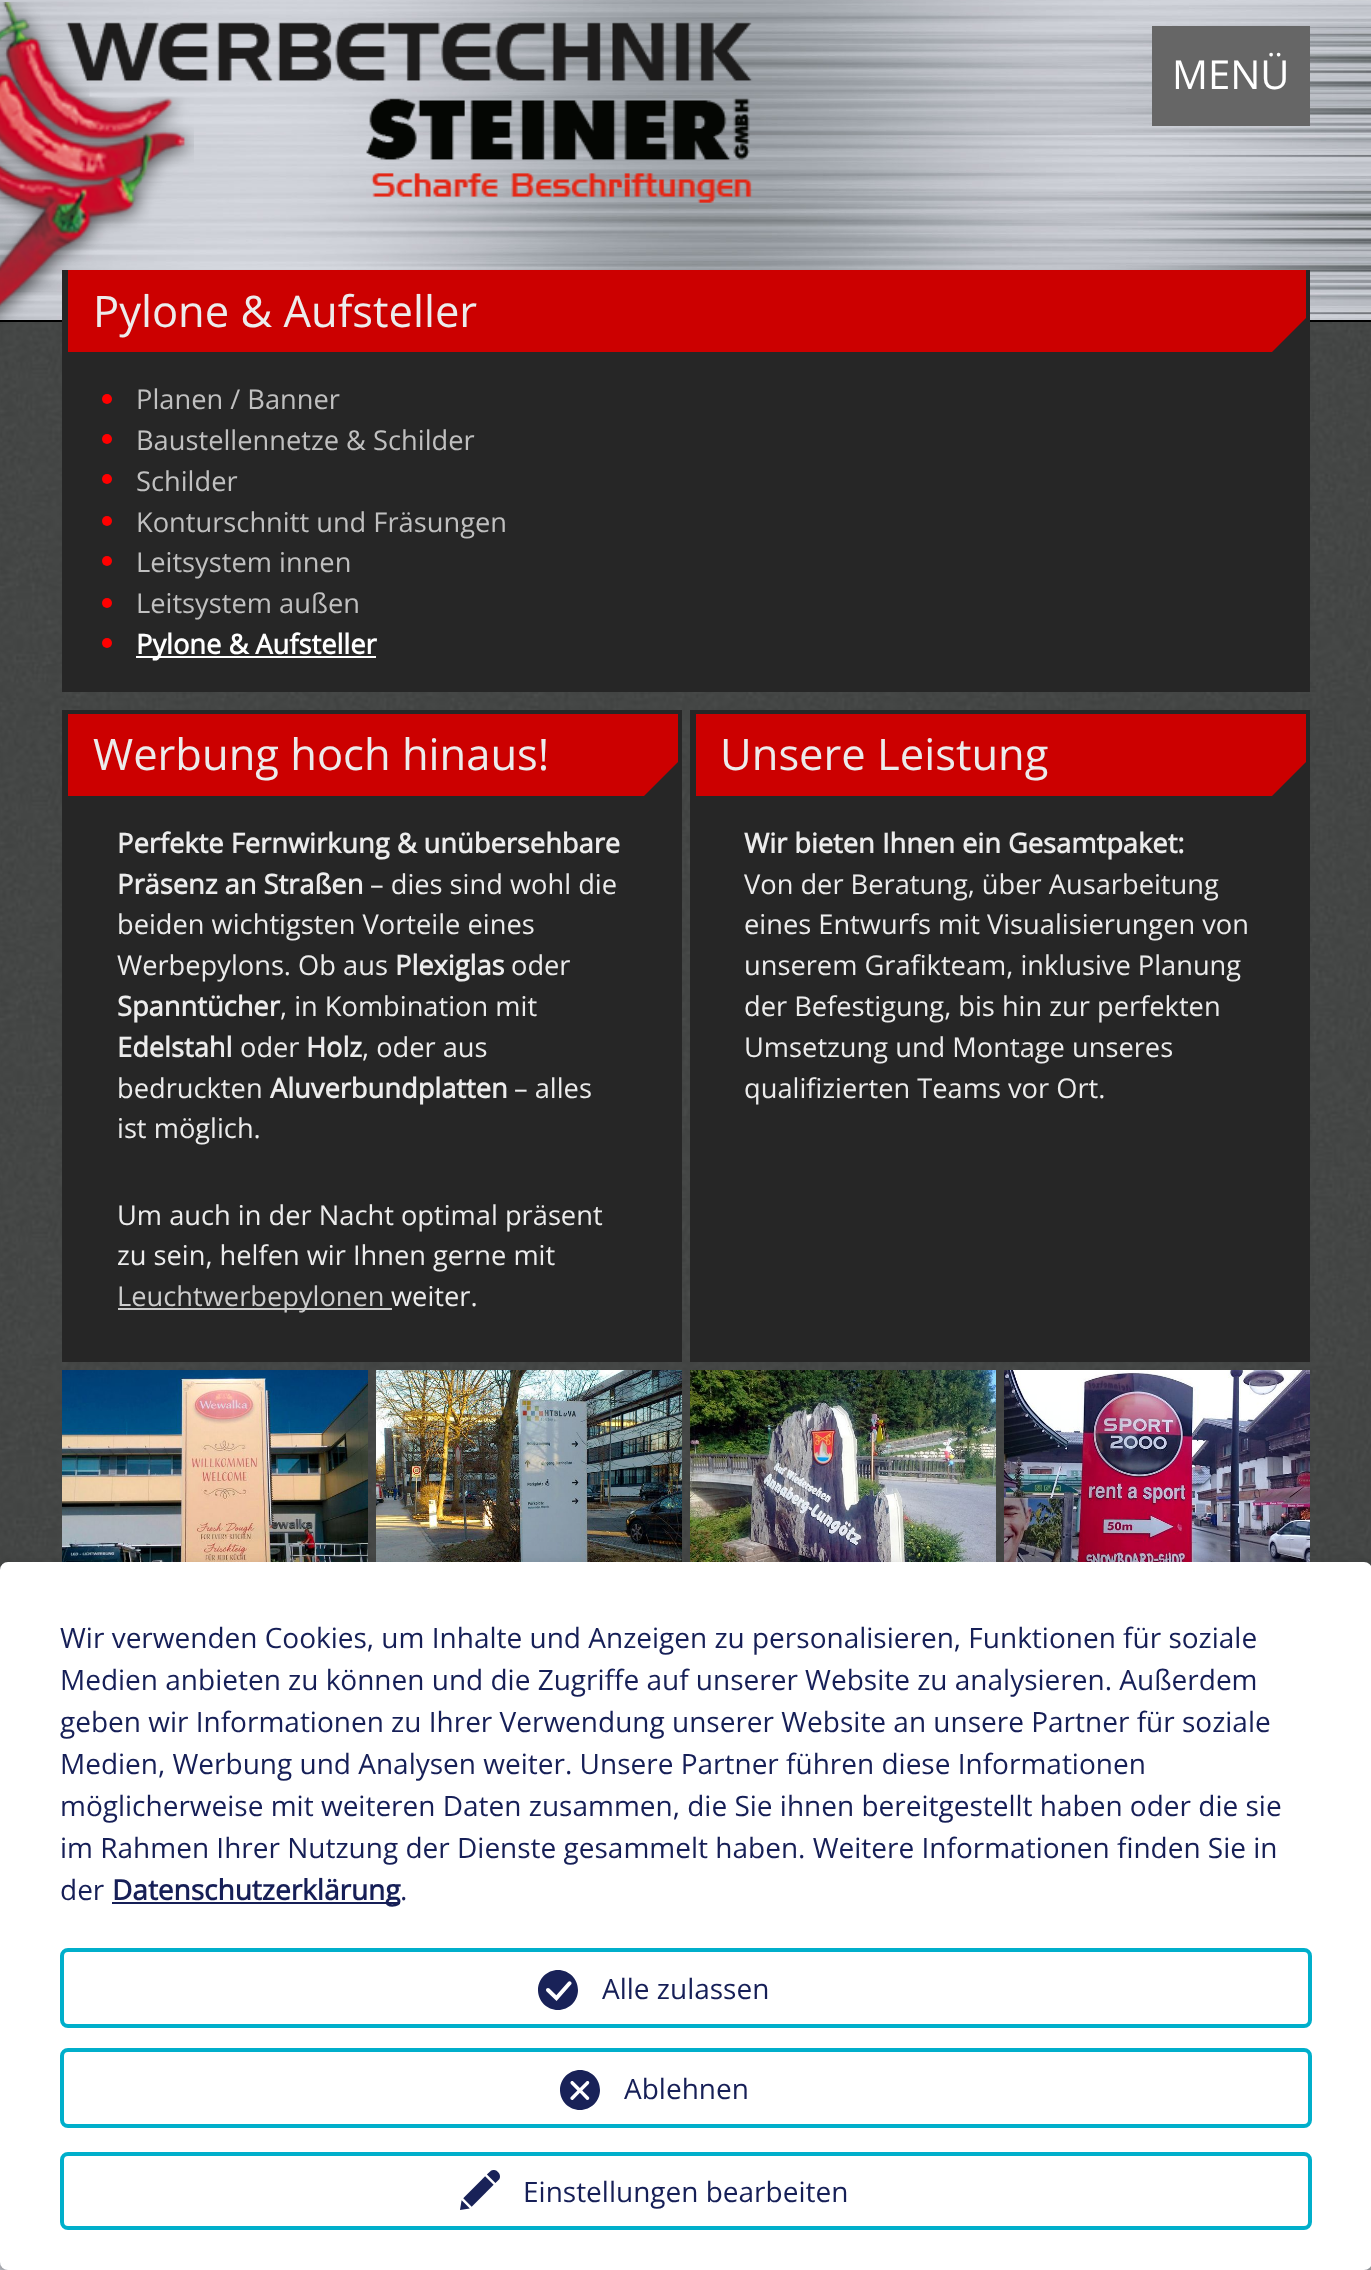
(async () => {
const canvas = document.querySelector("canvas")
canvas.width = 1371
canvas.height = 2270
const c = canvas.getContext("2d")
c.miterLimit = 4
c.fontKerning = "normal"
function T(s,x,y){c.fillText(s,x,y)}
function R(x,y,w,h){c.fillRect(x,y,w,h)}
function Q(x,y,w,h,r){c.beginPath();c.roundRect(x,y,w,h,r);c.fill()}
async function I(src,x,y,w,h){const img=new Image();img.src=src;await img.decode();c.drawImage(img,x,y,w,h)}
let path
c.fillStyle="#fff"
R(0,0,1371,2270)
await I("1.png",0,322,1371,1248)
await I("2.png",0,0,1371,320)
c.fillStyle="#000"
R(0,320,1371,2)
await I("4.png",66,22,687,181)
c.fillStyle="#262626"
R(62,270,1248,422)
c.fillStyle="#c00"
R(68,270,1238,82)
c.font="43.5px Open Sans"
c.fillStyle="#ececec"
T("Pylone & Aufsteller",93,327)
await I("3.png",0,2,194,322)
c.fillStyle="#666"
R(1152,26,158,100)
c.font="40px Open Sans"
c.fillStyle="#fff"
T("MENÜ",1172,89)
c.fillStyle="#262626"
path = new Path2D("M1306 318v34h-34z")
c.fill(path)
c.fillStyle="#f00"
c.beginPath()
c.arc(107,399,5,0,7)
c.fill()
c.font="27.25px Open Sans"
c.fillStyle="#c0c0c0"
T("Planen / Banner",136,409)
c.fillStyle="#f00"
c.beginPath()
c.arc(107,439,5,0,7)
c.fill()
c.fillStyle="#c0c0c0"
T("Baustellennetze & Schilder",136,450)
c.fillStyle="#f00"
c.beginPath()
c.arc(107,479,5,0,7)
c.fill()
c.fillStyle="#c0c0c0"
T("Schilder",136,491)
c.fillStyle="#f00"
c.beginPath()
c.arc(107,521,5,0,7)
c.fill()
c.fillStyle="#c0c0c0"
T("Konturschnitt und Fräsungen",136,532)
c.fillStyle="#f00"
c.beginPath()
c.arc(107,561,5,0,7)
c.fill()
c.fillStyle="#c0c0c0"
T("Leitsystem innen",136,572)
c.fillStyle="#f00"
c.beginPath()
c.arc(107,603,5,0,7)
c.fill()
c.fillStyle="#c0c0c0"
T("Leitsystem außen",136,613)
c.fillStyle="#f00"
c.beginPath()
c.arc(107,643,5,0,7)
c.fill()
c.fillStyle="#fff"
R(136,656,240,2)
c.font="bold 27.25px Open Sans"
T("Pylone & Aufsteller",136,654)
c.fillStyle="#262626"
R(62,710,620,652)
c.fillStyle="#c00"
R(68,714,610,82)
c.font="43.5px Open Sans"
c.fillStyle="#ececec"
T("Werbung hoch hinaus!",93,770)
c.fillStyle="#262626"
path = new Path2D("M678 762v34h-34z")
c.fill(path)
c.font="bold 27.25px Open Sans"
c.fillStyle="#ececec"
T("Perfekte Fernwirkung & unübersehbare",117,853)
T("Präsenz an Straßen",117,894)
c.font="27.25px Open Sans"
T("– dies sind wohl die",370,894)
T("beiden wichtigsten Vorteile eines",117,934)
T("Werbepylons. Ob aus",117,975)
c.font="bold 27.25px Open Sans"
T("Plexiglas",395,975)
c.font="27.25px Open Sans"
T("oder",511,975)
c.font="bold 27.25px Open Sans"
T("Spanntücher",117,1016)
c.font="27.25px Open Sans"
T(", in Kombination mit",280,1016)
c.font="bold 27.25px Open Sans"
T("Edelstahl",117,1057)
c.font="27.25px Open Sans"
T("oder",240,1057)
c.font="bold 27.25px Open Sans"
T("Holz",306,1057)
c.font="27.25px Open Sans"
T(", oder aus",362,1057)
T("bedruckten",117,1098)
c.font="bold 27.25px Open Sans"
T("Aluverbundplatten",270,1098)
c.font="27.25px Open Sans"
T("– alles",514,1098)
T("ist möglich.",117,1138)
T("Um auch in der Nacht optimal präsent",117,1225)
T("zu sein, helfen wir Ihnen gerne mit",117,1265)
c.fillStyle="#ccc"
R(118,1308,274,2)
T("Leuchtwerbepylonen",117,1306)
c.fillStyle="#ececec"
T("weiter.",391,1306)
c.fillStyle="#262626"
R(690,710,620,652)
c.fillStyle="#c00"
R(696,714,610,82)
c.font="43.5px Open Sans"
c.fillStyle="#ececec"
T("Unsere Leistung",720,770)
c.fillStyle="#262626"
path = new Path2D("M1306 762v34h-34z")
c.fill(path)
c.font="bold 27.25px Open Sans"
c.fillStyle="#ececec"
T("Wir bieten Ihnen ein Gesamtpaket:",744,853)
c.font="27.25px Open Sans"
T("Von der Beratung, über Ausarbeitung",744,894)
T("eines Entwurfs mit Visualisierungen von",744,934)
T("unserem Grafikteam, inklusive Planung",744,975)
T("der Befestigung, bis hin zur perfekten",744,1016)
T("Umsetzung und Montage unseres",744,1057)
T("qualifizierten Teams vor Ort.",744,1098)
await I("5.png",62,1370,306,192)
await I("6.png",376,1370,306,192)
await I("7.png",690,1370,306,192)
await I("8.png",1004,1370,306,192)
await I("12.png",0,2262,1371,8)
c.fillStyle="#00000030"
c.filter="blur(10px)"
c.beginPath()
c.roundRect(10,1572,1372,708,8)
c.fill()
c.filter="none"
c.fillStyle="#00000033"
c.filter="blur(6px)"
c.beginPath()
c.roundRect(0,1570,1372,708,8)
c.fill()
c.filter="none"
c.fillStyle="#fff"
Q(0,1562,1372,708,8)
c.font="28px Open Sans"
c.fillStyle="#161f57"
T("Wir verwenden Cookies, um Inhalte und Anzeigen zu personalisieren, Funktionen für soziale",60,1648)
T("Medien anbieten zu können und die Zugriffe auf unserer Website zu analysieren. Außerdem",60,1690)
T("geben wir Informationen zu Ihrer Verwendung unserer Website an unsere Partner für soziale",60,1732)
T("Medien, Werbung und Analysen weiter. Unsere Partner führen diese Informationen",60,1774)
T("möglicherweise mit weiteren Daten zusammen, die Sie ihnen bereitgestellt haben oder die sie",60,1816)
T("im Rahmen Ihrer Nutzung der Dienste gesammelt haben. Weitere Informationen finden Sie in",60,1858)
T("der",60,1900)
R(112,1902,288,2)
c.font="bold 28px Open Sans"
T("Datenschutzerklärung",112,1900)
c.font="28px Open Sans"
T(".",400,1900)
c.beginPath()
c.roundRect(62,1950,1248,76,6)
c.strokeStyle="#00afcb"
c.lineWidth=4
c.stroke()
await I("9.png",538,1970,40,40)
T("Alle zulassen",602,1999)
c.beginPath()
c.roundRect(62,2050,1248,76,6)
c.stroke()
await I("10.png",560,2070,40,40)
T("Ablehnen",624,2099)
c.beginPath()
c.roundRect(62,2154,1248,74,6)
c.stroke()
await I("11.png",460,2170,40,40)
T("Einstellungen bearbeiten",523,2202)
})()
